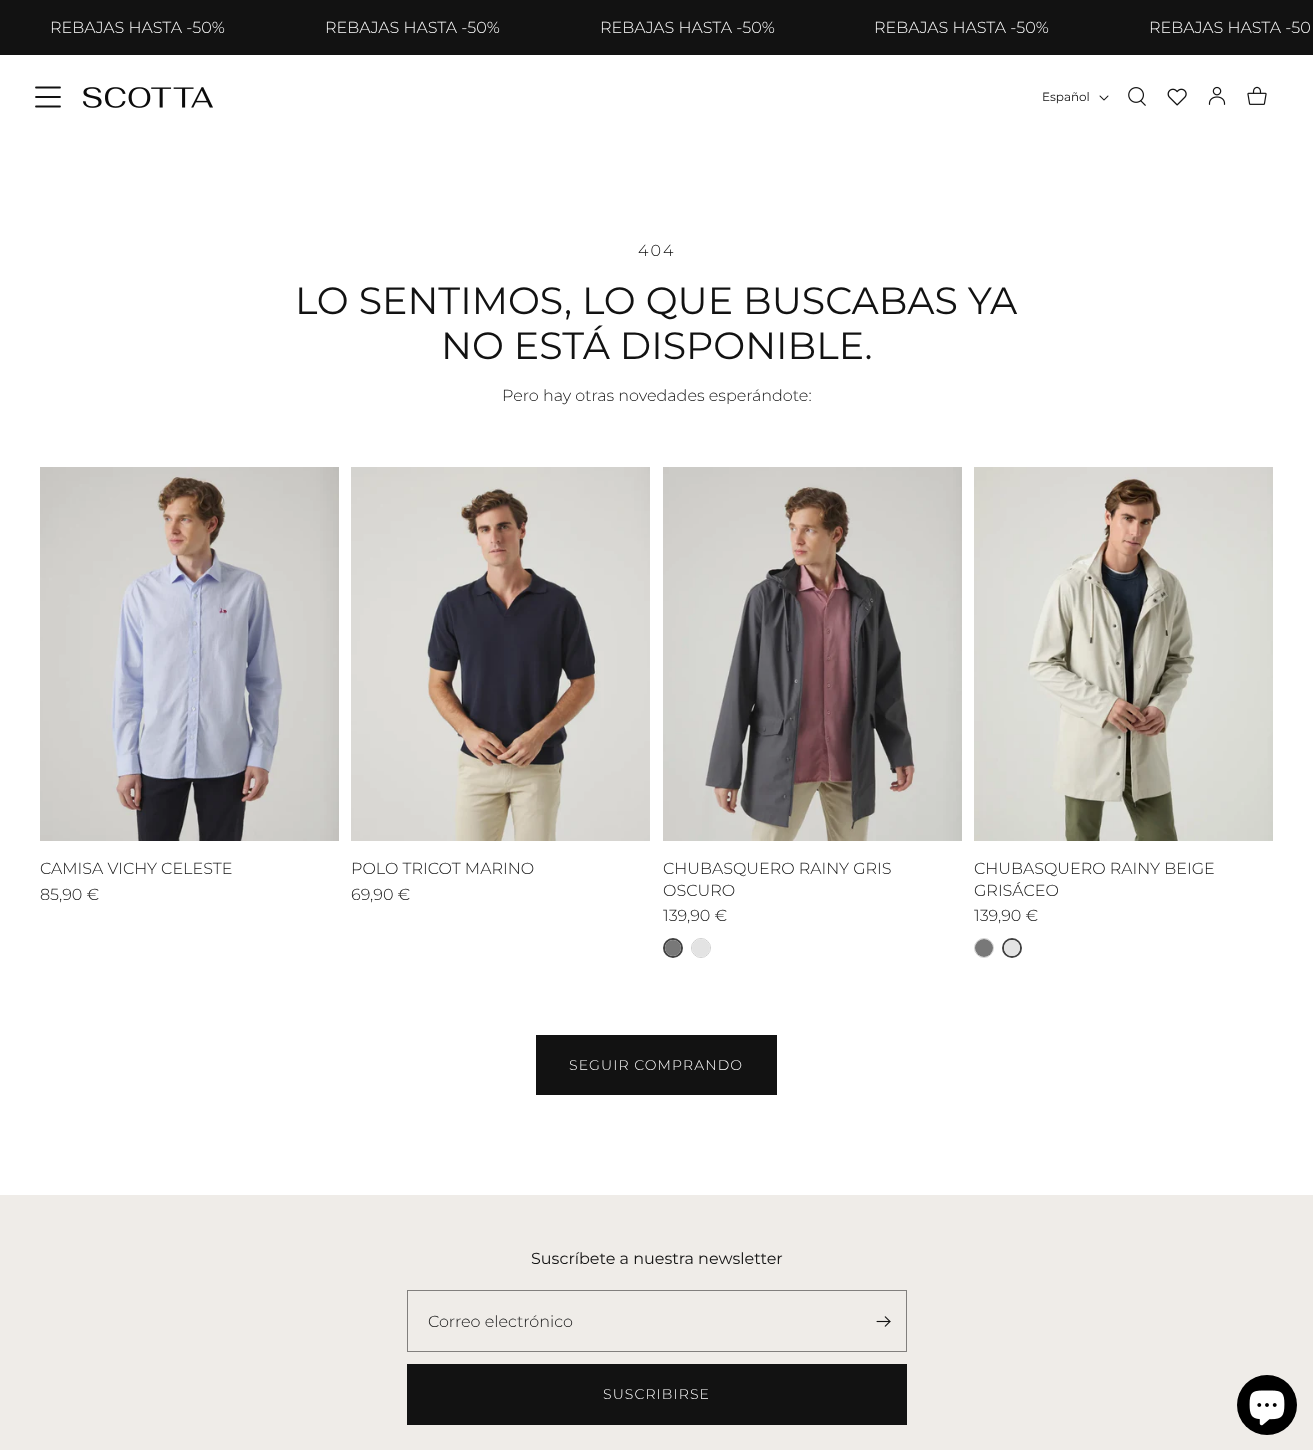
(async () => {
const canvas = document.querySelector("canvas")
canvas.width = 1313
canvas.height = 1450
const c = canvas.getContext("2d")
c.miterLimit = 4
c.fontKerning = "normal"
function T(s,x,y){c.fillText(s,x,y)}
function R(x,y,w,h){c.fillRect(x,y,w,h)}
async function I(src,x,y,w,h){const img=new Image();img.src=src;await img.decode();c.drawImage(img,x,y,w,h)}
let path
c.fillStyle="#fff"
R(0,0,1313,1450)
c.fillStyle="#121212"
R(0,0,1313,55)
c.font="300 16px Montserrat"
c.fillStyle="#fff"
T("REBAJAS HASTA -50%",50,33)
T("REBAJAS HASTA -50%",325,33)
T("REBAJAS HASTA -50%",600,33)
T("REBAJAS HASTA -50%",874,33)
T("REBAJAS HASTA -50",1149,33)
path = new Path2D("M36 87.5h24m-24 9.5h24m-24 9.5h24")
c.strokeStyle="#121212"
c.lineWidth=1.8
c.lineCap="round"
c.lineJoin="round"
c.stroke(path)
await I("1.png",83,87,130,21)
c.font="12px Montserrat"
c.fillStyle="#121212"
T("Español",1042,101)
await I("2.png",1099,95,10,6)
await I("3.png",1128,87,18,19)
await I("4.png",1167,88,20,18)
await I("5.png",1208,86,18,19)
await I("6.png",1247,86,20,19)
c.letterSpacing="2px"
c.font="300 16px Montserrat"
T("404",638,256)
c.letterSpacing="0px"
c.font="38px Montserrat"
T("LO SENTIMOS, LO QUE BUSCABAS YA",295,314)
T("NO ESTÁ DISPONIBLE.",441,359)
c.font="300 16px Montserrat"
T("Pero hay otras novedades esperándote:",502,401)
await I("7.png",40,467,299,374)
T("CAMISA VICHY CELESTE",40,874)
T("85,90 €",40,900)
await I("8.png",351,467,299,374)
T("POLO TRICOT MARINO",351,874)
T("69,90 €",351,900)
await I("9.png",663,467,299,374)
T("CHUBASQUERO RAINY GRIS",663,874)
T("OSCURO",663,896)
T("139,90 €",663,921)
c.beginPath()
c.arc(673,948,9,0,7)
c.strokeStyle="#414141"
c.lineWidth=2
c.stroke()
c.fillStyle="#787878"
c.beginPath()
c.arc(673,948,8,0,7)
c.fill()
c.beginPath()
c.arc(701,948,9.5,0,7)
c.strokeStyle="#d0d0d0"
c.lineWidth=1
c.stroke()
c.fillStyle="#e3e3e3"
c.beginPath()
c.arc(701,948,9,0,7)
c.fill()
await I("10.png",974,467,299,374)
c.fillStyle="#121212"
T("CHUBASQUERO RAINY BEIGE",974,874)
T("GRISÁCEO",974,896)
T("139,90 €",974,921)
c.beginPath()
c.arc(984,948,9.5,0,7)
c.stroke()
c.fillStyle="#787878"
c.beginPath()
c.arc(984,948,9,0,7)
c.fill()
c.beginPath()
c.arc(1012,948,9,0,7)
c.strokeStyle="#414141"
c.lineWidth=2
c.stroke()
c.fillStyle="#e3e3e3"
c.beginPath()
c.arc(1012,948,8,0,7)
c.fill()
c.fillStyle="#121212"
R(536,1035,241,60)
c.letterSpacing="1.1px"
c.font="300 14px Montserrat"
c.fillStyle="#fff"
T("SEGUIR COMPRANDO",569,1070)
c.fillStyle="#efece8"
R(0,1195,1313,255)
c.letterSpacing="0px"
c.font="16px Montserrat"
c.fillStyle="#121212"
T("Suscríbete a nuestra newsletter",531,1264)
c.strokeStyle="#817f7d"
c.lineWidth=1
c.lineJoin="miter"
c.strokeRect(407.5,1290.5,499,61)
c.font="300 16px Montserrat"
T("Correo electrónico",428,1327)
await I("11.png",876,1316,15,11)
R(407,1364,500,61)
c.letterSpacing="1.1px"
c.font="300 14px Montserrat"
c.fillStyle="#fff"
T("SUSCRIBIRSE",603,1399)
c.fillStyle="#000"
c.beginPath()
c.arc(1267,1405,30,0,7)
c.fill()
await I("12.png",1249,1390,36,36)
})()
